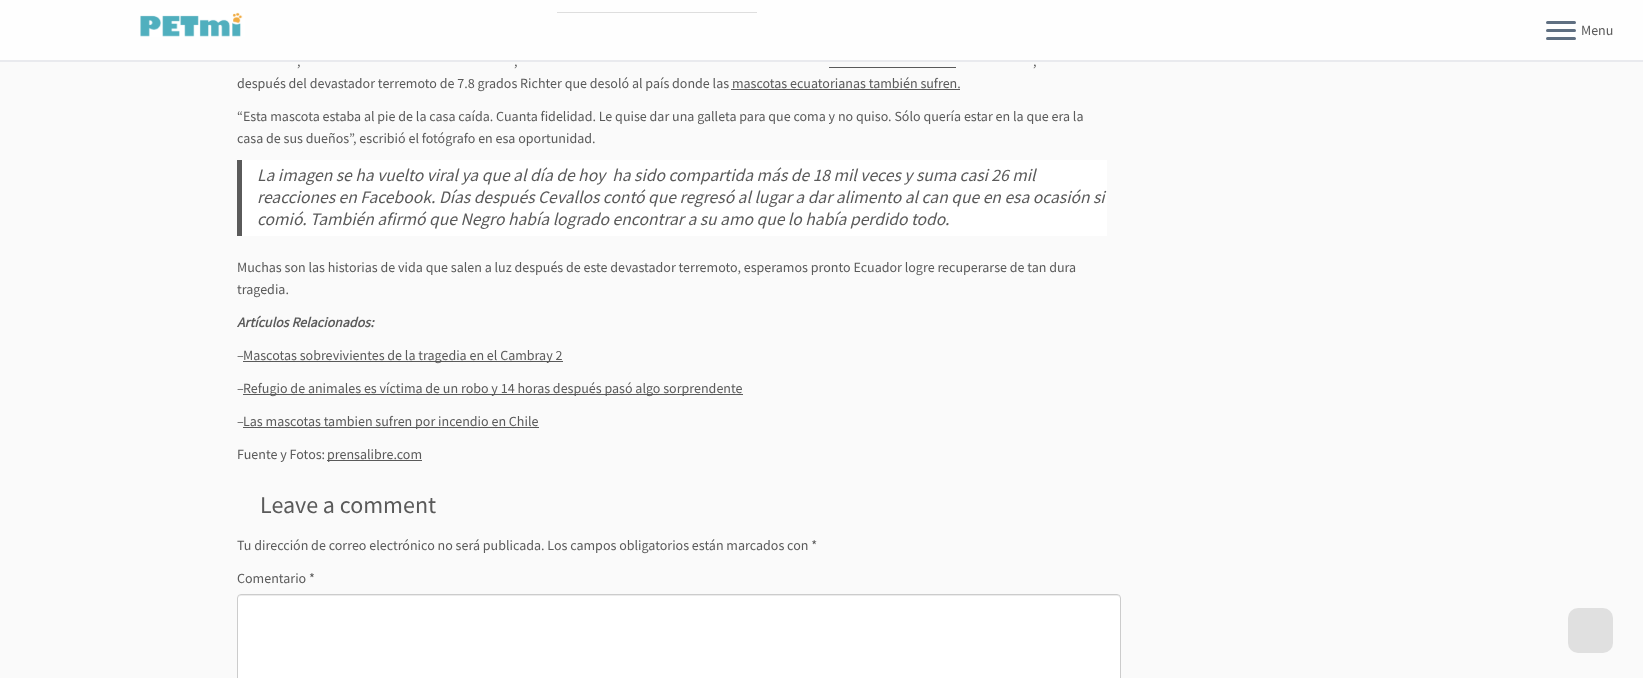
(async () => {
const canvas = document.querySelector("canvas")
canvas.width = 1643
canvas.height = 678
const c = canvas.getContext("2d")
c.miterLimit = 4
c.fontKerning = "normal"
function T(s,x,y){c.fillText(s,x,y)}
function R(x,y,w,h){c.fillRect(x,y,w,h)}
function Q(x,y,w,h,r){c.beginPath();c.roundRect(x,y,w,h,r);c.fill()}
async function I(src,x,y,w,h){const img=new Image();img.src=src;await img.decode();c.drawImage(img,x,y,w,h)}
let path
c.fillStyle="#fafafa"
R(0,0,1643,678)
c.fillStyle="#5a5a5a"
R(557,12,200,1)
c.fillStyle="#ffffffcc"
R(0,0,1643,60)
c.fillStyle="#e9eaee"
R(0,60,1643,2)
await I("1.png",140,10,106,27)
c.fillStyle="#5f6f81"
Q(1546,21,30,3,1.5)
Q(1546,29,30,3,1.5)
Q(1546,37,30,3,1.5)
c.font="14px Source Sans Pro"
c.fillStyle="#5a5a5a"
T("Menu",1581,35)
T(",",297,66)
T(",",514,66)
R(829,67,127,1)
T(",",1033,66)
T("después del devastador terremoto de 7.8 grados Richter que desoló al país donde las mascotas ecuatorianas también sufren.",237,88)
R(731,89,229,1)
T("“Esta mascota estaba al pie de la casa caída. Cuanta fidelidad. Le quise dar una galleta para que coma y no quiso. Sólo quería estar en la que era la",237,121)
T("casa de sus dueños”, escribió el fotógrafo en esa oportunidad.",237,143)
c.fillStyle="#fff"
R(242,160,865,76)
c.fillStyle="#5a5a5a"
R(237,160,5,76)
c.font="italic 17.5px Source Sans Pro"
T("La imagen se ha vuelto viral ya que al día de hoy  ha sido compartida más de 18 mil veces y suma casi 26 mil",257,181)
T("reacciones en Facebook. Días después Cevallos contó que regresó al lugar a dar alimento al can que en esa ocasión si",257,203)
T("comió. También afirmó que Negro había logrado encontrar a su amo que lo había perdido todo.",257,225)
c.font="14px Source Sans Pro"
T("Muchas son las historias de vida que salen a luz después de este devastador terremoto, esperamos pronto Ecuador logre recuperarse de tan dura",237,272)
T("tragedia.",237,294)
c.font="italic bold 14px Source Sans Pro"
T("Artículos Relacionados:",237,327)
c.font="14px Source Sans Pro"
T("–",237,360)
R(243,361,320,1)
T("Mascotas sobrevivientes de la tragedia en el Cambray 2",243,360)
T("–",237,393)
R(243,394,500,1)
T("Refugio de animales es víctima de un robo y 14 horas después pasó algo sorprendente",243,393)
T("–",237,426)
R(243,427,296,1)
T("Las mascotas tambien sufren por incendio en Chile",243,426)
T("Fuente y Fotos:",237,459)
R(327,460,95,1)
T("prensalibre.com",327,459)
c.font="24px Source Sans Pro"
T("Leave a comment",260,513)
c.font="14px Source Sans Pro"
T("Tu dirección de correo electrónico no será publicada. Los campos obligatorios están marcados con *",237,550)
T("Comentario *",237,583)
c.fillStyle="#fff"
Q(237,594,884,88,4)
c.fillStyle="#ececec"
path = new Path2D("M241 596h876c2 0 3 1 3 3c0-2-1-4-3-4h-876c-2 0-3 2-3 4c0-2 1-3 3-3z")
c.fill(path)
c.beginPath()
c.roundRect(237.5,594.5,883,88,3.5)
c.strokeStyle="#ccc"
c.stroke()
c.fillStyle="#e0e0e0"
Q(1568,608,45,45,10)
})()
